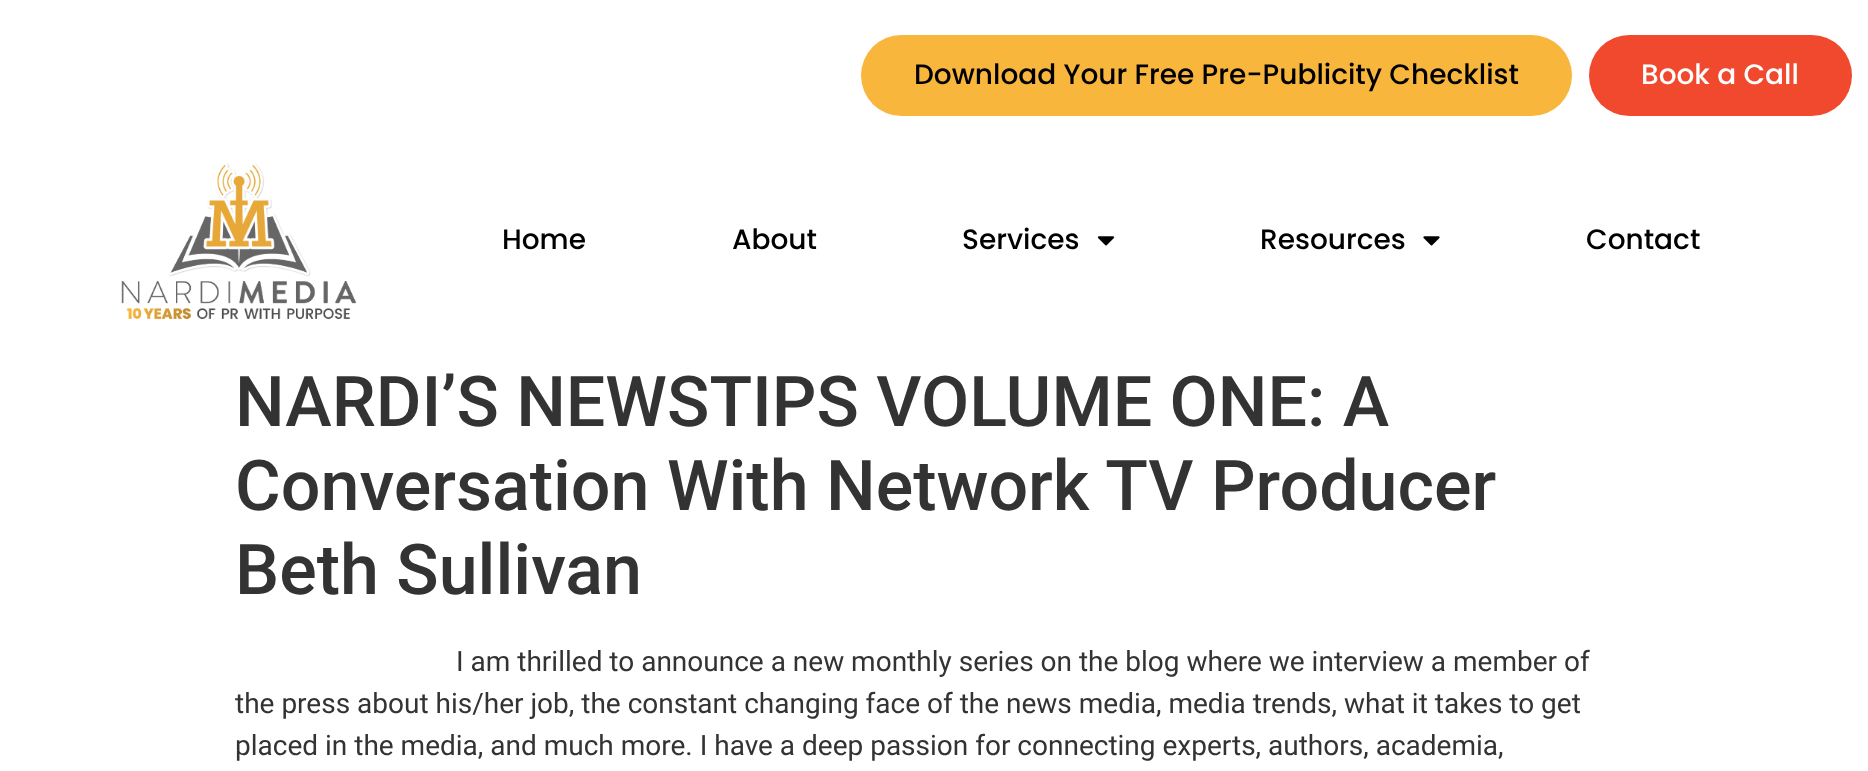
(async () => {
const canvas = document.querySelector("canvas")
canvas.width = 1868
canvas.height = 771
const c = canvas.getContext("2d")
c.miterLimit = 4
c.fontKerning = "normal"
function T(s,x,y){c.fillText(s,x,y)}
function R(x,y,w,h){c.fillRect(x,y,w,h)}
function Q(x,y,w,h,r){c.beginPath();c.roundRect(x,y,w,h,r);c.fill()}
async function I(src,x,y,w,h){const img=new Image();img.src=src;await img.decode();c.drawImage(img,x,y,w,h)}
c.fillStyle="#fff"
R(0,0,1868,771)
c.fillStyle="#f9b63c"
Q(861,35,711,81,40.5)
c.font="500 28px Poppins"
c.fillStyle="#000"
T("Download Your Free Pre-Publicity Checklist",914,84)
c.fillStyle="#f0492e"
Q(1589,35,263,81,40.5)
c.fillStyle="#fff"
T("Book a Call",1641,84)
await I("1.png",121,163,236,157)
c.fillStyle="#000"
T("Home",502,249)
T("About",732,249)
T("Services",962,249)
await I("2.png",1097,236,18,10)
T("Resources",1260,249)
await I("3.png",1423,236,17,10)
T("Contact",1586,249)
c.font="500 70px Roboto"
c.fillStyle="#333"
T("NARDI’S NEWSTIPS VOLUME ONE: A",235,426)
T("Conversation With Network TV Producer",235,510)
T("Beth Sullivan",235,594)
c.font="28px Roboto"
T("I am thrilled to announce a new monthly series on the blog where we interview a member of",456,671)
T("the press about his/her job, the constant changing face of the news media, media trends, what it takes to get",235,713)
T("placed in the media, and much more. I have a deep passion for connecting experts, authors, academia,",235,755)
})()
